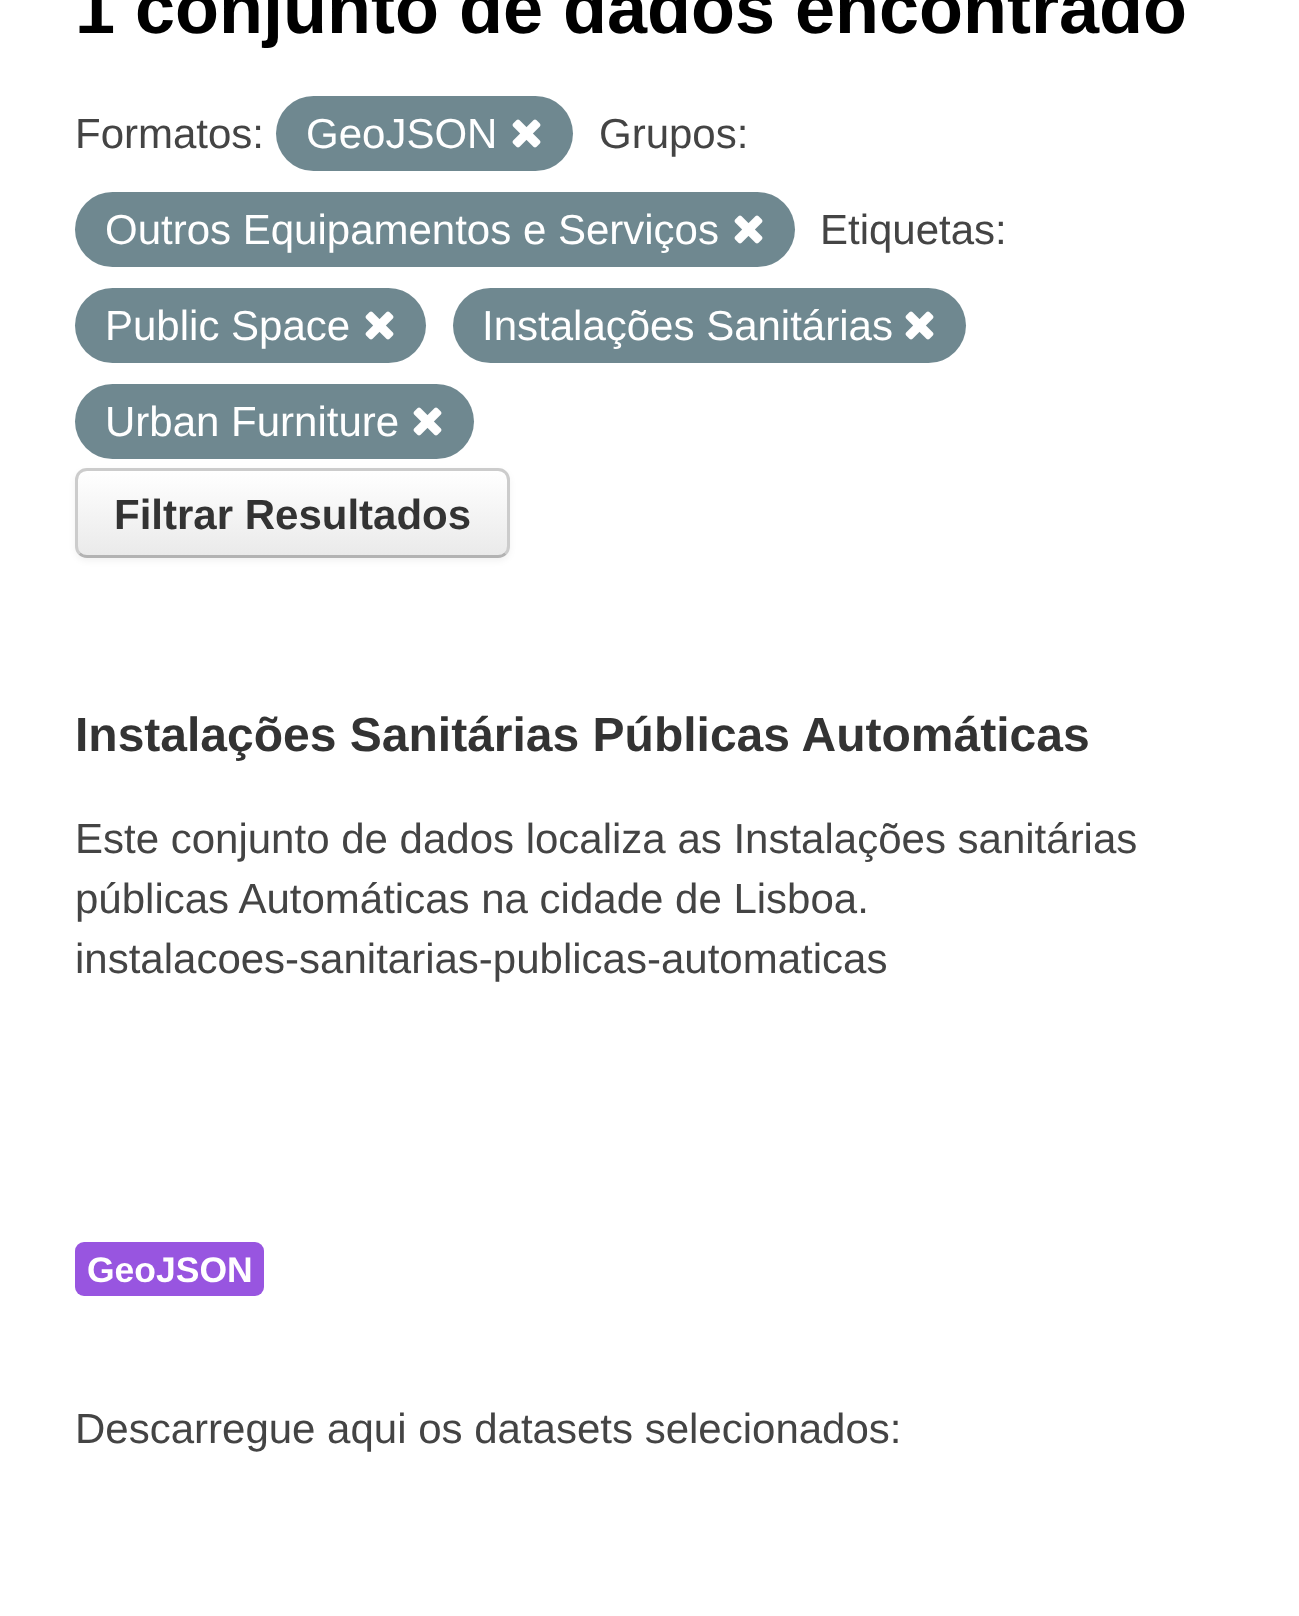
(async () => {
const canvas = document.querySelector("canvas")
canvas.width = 1299
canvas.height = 1616
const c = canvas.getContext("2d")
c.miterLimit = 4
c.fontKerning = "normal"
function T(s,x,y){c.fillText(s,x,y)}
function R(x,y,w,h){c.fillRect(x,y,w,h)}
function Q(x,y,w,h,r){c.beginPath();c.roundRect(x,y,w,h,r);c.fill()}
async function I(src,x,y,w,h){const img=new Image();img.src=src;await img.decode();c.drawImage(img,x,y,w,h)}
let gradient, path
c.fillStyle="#fff"
R(0,0,1299,1616)
c.font="bold 72px Liberation Sans"
c.fillStyle="#000"
T("1 conjunto de dados encontrado",75,33)
c.font="42px Liberation Sans"
c.fillStyle="#444"
T("Formatos:",75,148)
c.fillStyle="#6f8890"
Q(276,96,297,75,37.5)
c.fillStyle="#fff"
T("GeoJSON",306,148)
await I("1.png",512,119,29,29)
c.fillStyle="#444"
T("Grupos:",599,148)
c.fillStyle="#6f8890"
Q(75,192,720,75,37.5)
c.fillStyle="#fff"
T("Outros Equipamentos e Serviços",105,244)
await I("1.png",734,215,29,29)
c.fillStyle="#444"
T("Etiquetas:",820,244)
c.fillStyle="#6f8890"
Q(75,288,351,75,37.5)
c.fillStyle="#fff"
T("Public Space",105,340)
await I("1.png",365,311,29,29)
c.fillStyle="#6f8890"
Q(453,288,513,75,37.5)
c.fillStyle="#fff"
T("Instalações Sanitárias",482,340)
await I("1.png",905,311,29,29)
c.fillStyle="#6f8890"
Q(75,384,399,75,37.5)
c.fillStyle="#fff"
T("Urban Furniture",105,436)
await I("1.png",413,407,29,29)
c.fillStyle="#0000000d"
c.filter="blur(3px)"
c.beginPath()
c.roundRect(75,471,435,90,12)
c.fill()
c.filter="none"
c.save()
c.beginPath()
c.roundRect(75,468,435,90,12)
c.clip()
gradient = c.createLinearGradient(293,471,293,555)
gradient.addColorStop(0,"#fff")
gradient.addColorStop(1,"#eaeaea")
c.fillStyle = gradient
R(75,471,435,84)
c.restore()
path = new Path2D("M505.5 553.5c-2 2-4.5 3-7.5 3h-411c-3 0-5.5-1-7.5-3")
c.strokeStyle="#b3b3b3"
c.lineWidth=3
c.stroke(path)
path = new Path2D("M79.5 553.5c-2-2-3-4.5-3-7.5v-66c0-3 1-5.5 3-7.5c2-2 4.5-3 7.5-3h411c3 0 5.5 1 7.5 3c2 2 3 4.5 3 7.5v66c0 3-1 5.5-3 7.5")
c.strokeStyle="#ccc"
c.stroke(path)
c.font="bold 42px Liberation Sans"
c.fillStyle="#333"
T("Filtrar Resultados",114,529)
c.font="bold 48px Liberation Sans"
T("Instalações Sanitárias Públicas Automáticas",75,751)
c.font="42px Liberation Sans"
c.fillStyle="#444"
T("Este conjunto de dados localiza as Instalações sanitárias",75,853)
T("públicas Automáticas na cidade de Lisboa.",75,913)
T("instalacoes-sanitarias-publicas-automaticas",75,973)
c.fillStyle="#9855e0"
Q(75,1242,189,54,9)
c.font="bold 35.5px Liberation Sans"
c.fillStyle="#fff"
T("GeoJSON",87,1282)
c.font="42px Liberation Sans"
c.fillStyle="#444"
T("Descarregue aqui os datasets selecionados:",75,1443)
})()
